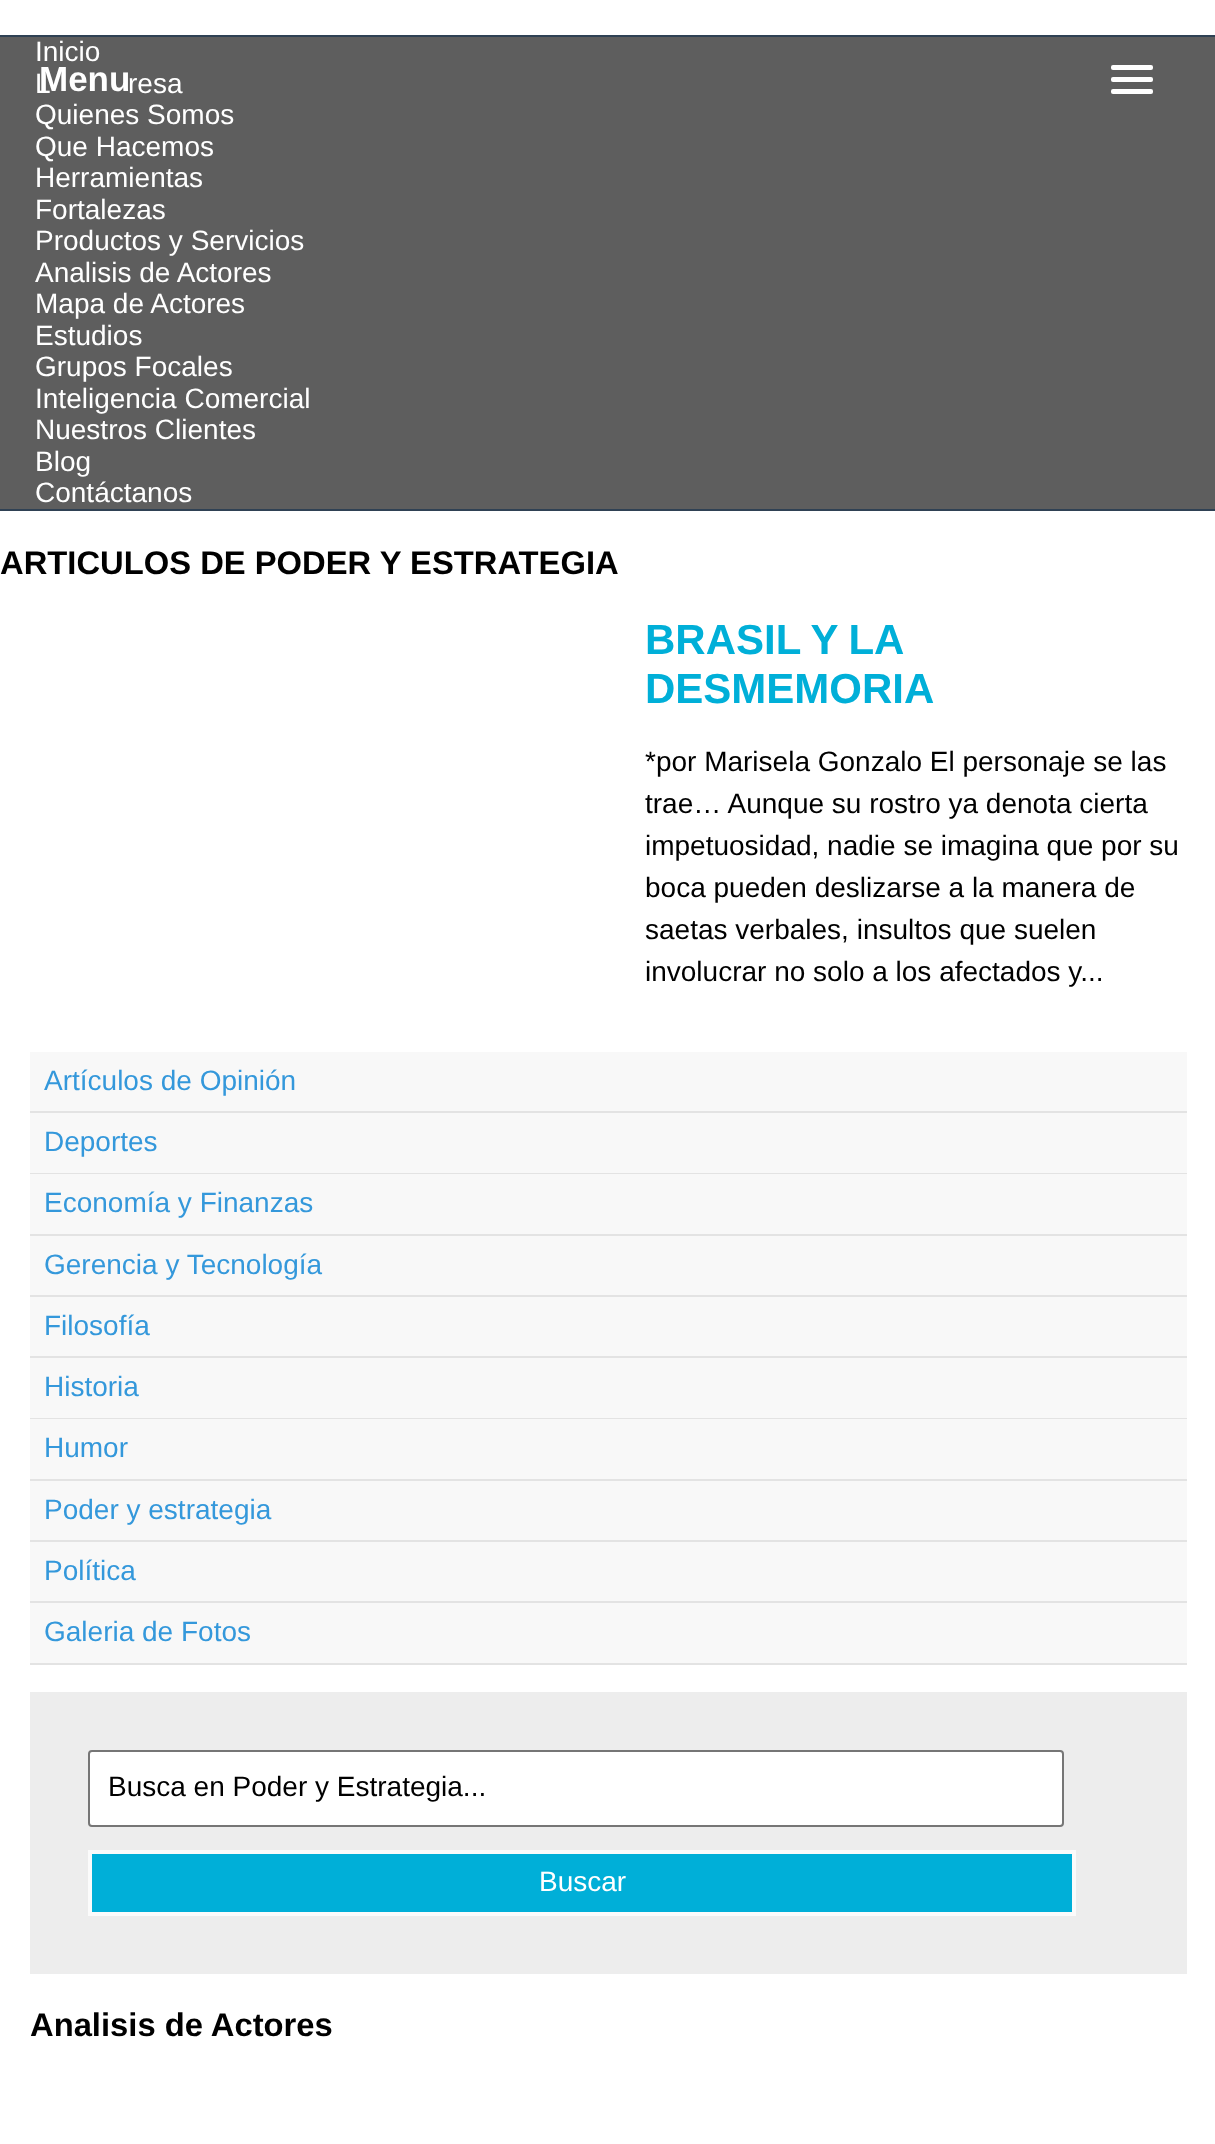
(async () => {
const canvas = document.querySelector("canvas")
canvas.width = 1215
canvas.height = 2144
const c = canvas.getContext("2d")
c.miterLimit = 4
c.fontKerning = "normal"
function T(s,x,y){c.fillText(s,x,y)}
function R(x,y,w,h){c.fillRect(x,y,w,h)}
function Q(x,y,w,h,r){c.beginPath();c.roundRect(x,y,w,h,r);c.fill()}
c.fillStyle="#fff"
R(0,0,1215,2144)
c.fillStyle="#5e5e5e"
R(0,37,1215,472)
c.fillStyle="#2f4154"
R(0,35,1215,2)
R(0,509,1215,2)
c.font="28px Liberation Sans"
c.fillStyle="#fff"
T("Inicio",35,61)
c.font="bold 35px Liberation Sans"
T("Menu",39,91)
c.font="28px Liberation Sans"
T("L",35,93)
T("resa",128,93)
T("Quienes Somos",35,124)
T("Que Hacemos",35,156)
T("Herramientas",35,187)
T("Fortalezas",35,219)
T("Productos y Servicios",35,250)
T("Analisis de Actores",35,282)
T("Mapa de Actores",35,313)
T("Estudios",35,345)
T("Grupos Focales",35,376)
T("Inteligencia Comercial",35,408)
T("Nuestros Clientes",35,439)
T("Blog",35,471)
T("Contáctanos",35,502)
Q(1111,65,42,5,2)
Q(1111,77,42,5,2)
Q(1111,89,42,5,2)
c.font="bold 32.75px Liberation Sans"
c.fillStyle="#000"
T("ARTICULOS DE PODER Y ESTRATEGIA",0,574)
c.wordSpacing="-1px"
c.font="bold 42px Liberation Sans"
c.fillStyle="#00afd8"
T("BRASIL Y LA",645,654)
c.wordSpacing="0px"
T("DESMEMORIA",645,703)
c.font="28px Liberation Sans"
c.fillStyle="#000"
T("*por Marisela Gonzalo El personaje se las",645,771)
T("trae… Aunque su rostro ya denota cierta",645,813)
T("impetuosidad, nadie se imagina que por su",645,855)
T("boca pueden deslizarse a la manera de",645,897)
T("saetas verbales, insultos que suelen",645,939)
T("involucrar no solo a los afectados y...",645,981)
c.fillStyle="#e3e3e3"
R(30,1111,1157,2)
c.fillStyle="#f8f8f8"
R(30,1052,1157,59)
c.fillStyle="#3498db"
T("Artículos de Opinión",44,1090)
c.fillStyle="#e3e3e3"
R(30,1173,1157,1)
c.fillStyle="#f8f8f8"
R(30,1113,1157,60)
c.fillStyle="#3498db"
T("Deportes",44,1151)
c.fillStyle="#e3e3e3"
R(30,1234,1157,2)
c.fillStyle="#f8f8f8"
R(30,1174,1157,60)
c.fillStyle="#3498db"
T("Economía y Finanzas",44,1212)
c.fillStyle="#e3e3e3"
R(30,1295,1157,2)
c.fillStyle="#f8f8f8"
R(30,1236,1157,59)
c.fillStyle="#3498db"
T("Gerencia y Tecnología",44,1274)
c.fillStyle="#e3e3e3"
R(30,1356,1157,2)
c.fillStyle="#f8f8f8"
R(30,1297,1157,59)
c.fillStyle="#3498db"
T("Filosofía",44,1335)
c.fillStyle="#e3e3e3"
R(30,1418,1157,1)
c.fillStyle="#f8f8f8"
R(30,1358,1157,60)
c.fillStyle="#3498db"
T("Historia",44,1396)
c.fillStyle="#e3e3e3"
R(30,1479,1157,2)
c.fillStyle="#f8f8f8"
R(30,1419,1157,60)
c.fillStyle="#3498db"
T("Humor",44,1457)
c.fillStyle="#e3e3e3"
R(30,1540,1157,2)
c.fillStyle="#f8f8f8"
R(30,1481,1157,59)
c.fillStyle="#3498db"
T("Poder y estrategia",44,1519)
c.fillStyle="#e3e3e3"
R(30,1601,1157,2)
c.fillStyle="#f8f8f8"
R(30,1542,1157,59)
c.fillStyle="#3498db"
T("Política",44,1580)
c.fillStyle="#e3e3e3"
R(30,1663,1157,2)
c.fillStyle="#f8f8f8"
R(30,1603,1157,60)
c.fillStyle="#3498db"
T("Galeria de Fotos",44,1641)
c.fillStyle="#ededed"
R(30,1692,1157,282)
c.fillStyle="#fff"
c.beginPath()
c.roundRect(89,1751,974,75,3)
c.fill()
c.strokeStyle="#767676"
c.lineWidth=2
c.stroke()
c.fillStyle="#000"
T("Busca en Poder y Estrategia...",108,1796)
c.fillStyle="#00afd8"
c.beginPath()
c.rect(90,1852,984,62)
c.fill()
c.strokeStyle="#fbfbfb"
c.lineWidth=4
c.stroke()
c.fillStyle="#fff"
T("Buscar",539,1891)
c.font="bold 32.75px Liberation Sans"
c.fillStyle="#000"
T("Analisis de Actores",30,2036)
})()
